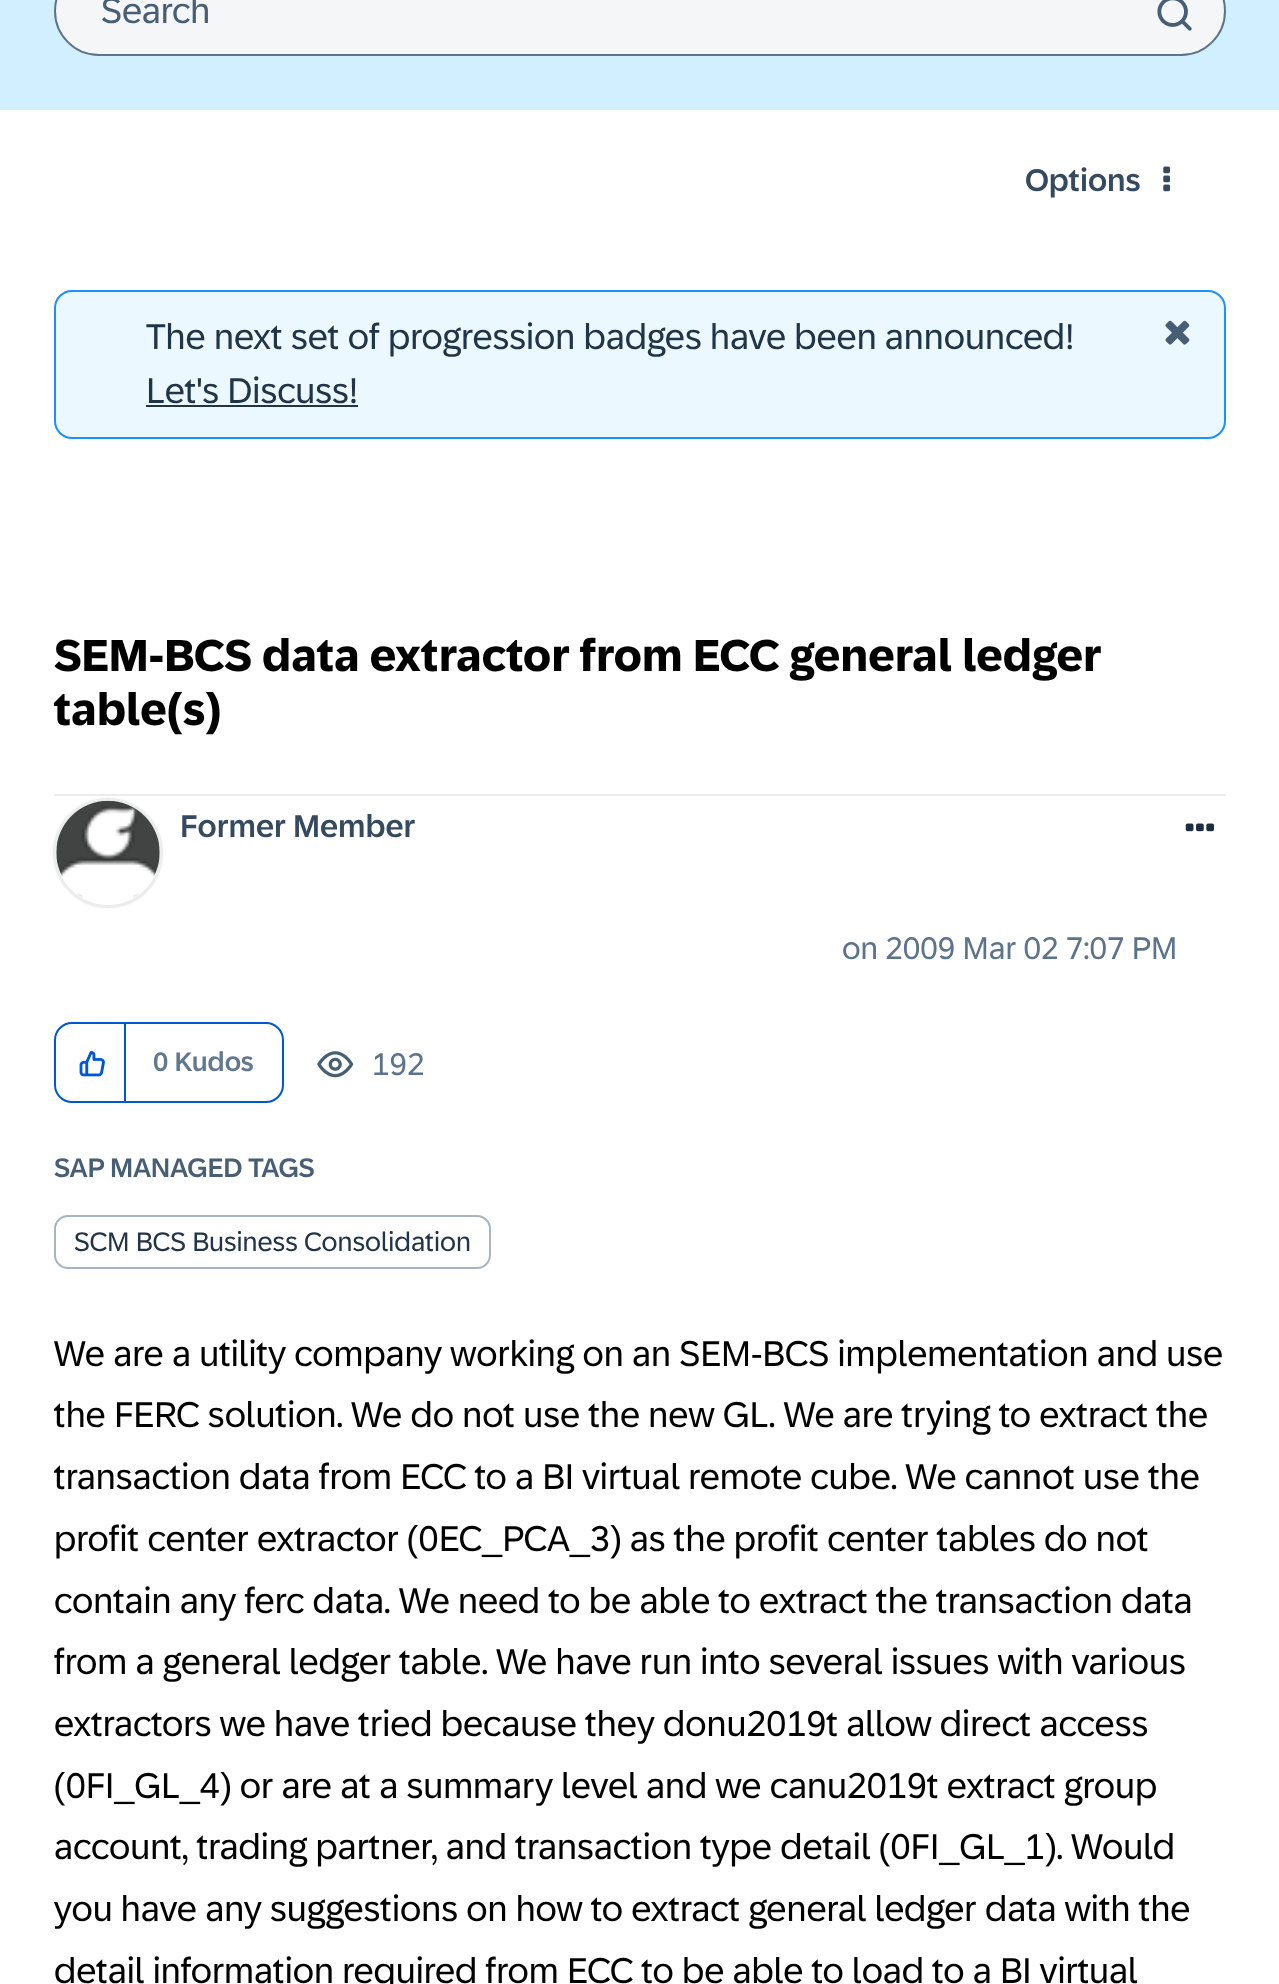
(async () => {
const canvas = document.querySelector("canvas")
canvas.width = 1279
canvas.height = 1984
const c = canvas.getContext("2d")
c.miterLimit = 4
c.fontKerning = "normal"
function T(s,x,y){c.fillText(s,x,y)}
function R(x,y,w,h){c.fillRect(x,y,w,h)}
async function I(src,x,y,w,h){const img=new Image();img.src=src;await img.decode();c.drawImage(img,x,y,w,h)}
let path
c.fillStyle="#fff"
R(0,0,1279,1984)
c.fillStyle="#d1efff"
R(0,0,1279,110)
c.fillStyle="#f5f6f7"
c.beginPath()
c.roundRect(55,-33,1170,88,44)
c.fill()
c.strokeStyle="#5b738b"
c.lineWidth=2
c.stroke()
c.font="36px '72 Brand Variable'"
c.fillStyle="#475e75"
T("Search",101,23)
await I("1.png",1157,0,35,31)
c.font="500 31.5px '72 Brand Variable'"
c.fillStyle="#354a5f"
T("Options",1025,191)
await I("2.png",1163,166,7,26)
c.fillStyle="#ebf8ff"
c.beginPath()
c.roundRect(55,291,1170,147,17)
c.fill()
c.strokeStyle="#1b90ff"
c.stroke()
c.font="36px '72 Brand Variable'"
c.fillStyle="#223548"
T("The next set of progression badges have been announced!",146,349)
T("Let's Discuss!",146,403)
R(146,405,212,2)
await I("3.png",1165,320,25,25)
c.fillStyle="#eaecee"
R(54,794,1172,2)
c.font="bold 45px '72 Brand Variable'"
c.fillStyle="#000"
T("SEM-BCS data extractor from ECC general ledger",54,671)
T("table(s)",54,725)
c.save()
path = new Path2D("M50 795h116v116h-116zm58 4c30 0 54 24 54 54c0 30-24 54-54 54c-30 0-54-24-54-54c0-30 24-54 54-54z")
c.clip(path,"evenodd")
c.fillStyle="#c4c4c4"
c.filter="blur(1px)"
c.beginPath()
c.roundRect(54,799,108,108,54)
c.fill()
c.filter="none"
c.restore()
c.beginPath()
c.arc(108,853,53,0,7)
c.strokeStyle="#eaecee"
c.stroke()
await I("4.png",56,800,104,98)
c.font="500 31.5px '72 Brand Variable'"
c.fillStyle="#354a5f"
T("Former Member",180,837)
await I("5.png",1185,823,30,9)
c.font="31.5px '72 Brand Variable'"
c.fillStyle="#5b738b"
T("on 2009 Mar 02 7:07 PM",842,959)
c.beginPath()
c.roundRect(55,1023,228,79,17)
c.strokeStyle="#0057d2"
c.stroke()
c.fillStyle="#0057d2"
R(124,1024,2,79)
await I("6.png",79,1051,26,26)
c.font="500 27px '72 Brand Variable'"
c.fillStyle="#617990"
T("0 Kudos",153,1071)
await I("7.png",317,1051,37,27)
c.font="31.5px '72 Brand Variable'"
c.fillStyle="#5b738b"
T("192",372,1075)
c.font="500 27px '72 Brand Variable'"
c.fillStyle="#475e75"
T("SAP MANAGED TAGS",54,1177)
c.beginPath()
c.roundRect(55,1216,435,52,13)
c.strokeStyle="#a9b4be"
c.stroke()
c.font="27px '72 Brand Variable'"
c.fillStyle="#223548"
T("SCM BCS Business Consolidation",74,1251)
c.font="36px '72 Brand Variable'"
c.fillStyle="#000"
T("We are a utility company working on an SEM-BCS implementation and use",54,1366)
T("the FERC solution. We do not use the new GL. We are trying to extract the",54,1427)
T("transaction data from ECC to a BI virtual remote cube. We cannot use the",54,1489)
T("profit center extractor (0EC_PCA_3) as the profit center tables do not",54,1551)
T("contain any ferc data. We need to be able to extract the transaction data",54,1613)
T("from a general ledger table. We have run into several issues with various",54,1674)
T("extractors we have tried because they donu2019t allow direct access",54,1736)
T("(0FI_GL_4) or are at a summary level and we canu2019t extract group",54,1798)
T("account, trading partner, and transaction type detail (0FI_GL_1). Would",54,1859)
T("you have any suggestions on how to extract general ledger data with the",54,1921)
T("detail information required from ECC to be able to load to a BI virtual",54,1983)
})()
